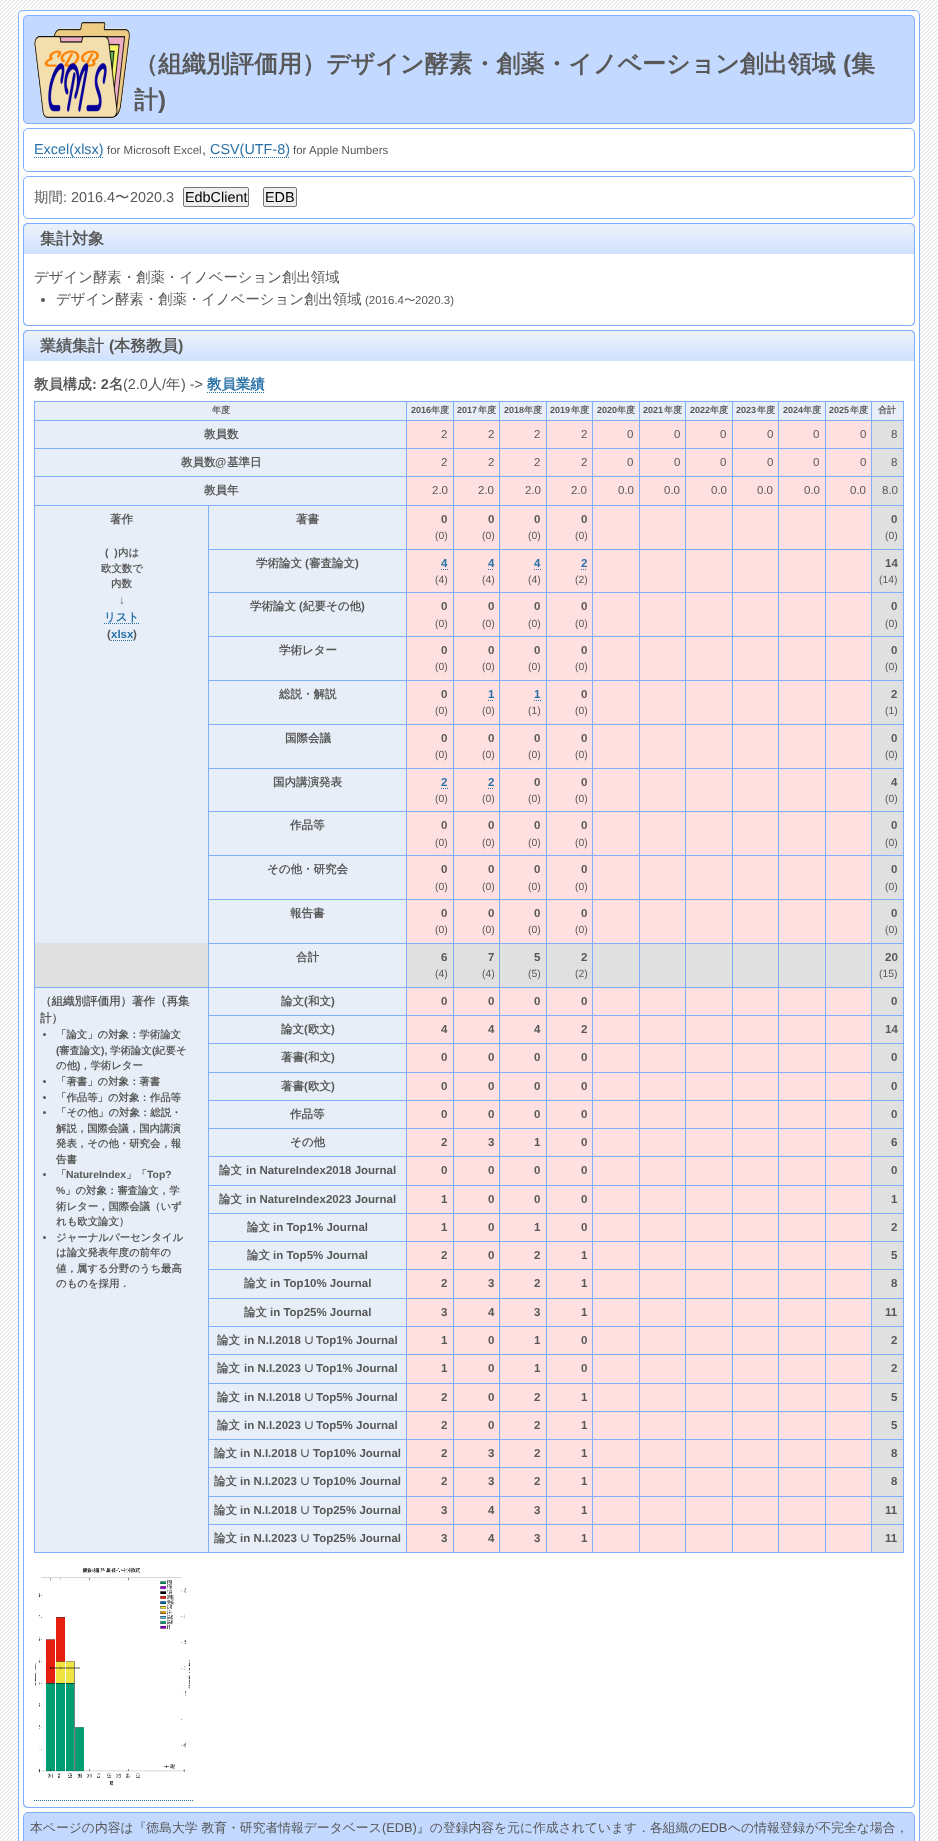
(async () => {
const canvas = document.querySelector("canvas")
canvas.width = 938
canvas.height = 1841
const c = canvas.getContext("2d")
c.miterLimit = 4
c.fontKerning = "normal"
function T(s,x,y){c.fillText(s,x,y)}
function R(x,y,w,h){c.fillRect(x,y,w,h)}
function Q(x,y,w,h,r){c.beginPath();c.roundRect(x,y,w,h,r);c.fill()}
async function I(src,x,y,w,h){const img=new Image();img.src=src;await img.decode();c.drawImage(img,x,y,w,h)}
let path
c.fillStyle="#eee"
R(0,0,938,1841)
await I("1.png",0,0,938,1841)
c.fillStyle="#fff"
c.beginPath()
c.roundRect(18.5,10.5,901,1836,4.5)
c.fill()
c.strokeStyle="#80aeff"
c.stroke()
c.fillStyle="#c3d9ff"
Q(23,15,892,109,5)
await I("2.png",34,22,96,96)
c.beginPath()
c.roundRect(23.5,15.5,891,108,4.5)
c.stroke()
c.font="bold 24px WenQuanYi Zen Hei"
c.fillStyle="#585858"
T("（組織別評価用）デザイン酵素・創薬・イノベーション創出領域",134,72)
c.font="bold 24px Liberation Sans"
T("(",843,72)
c.font="bold 24px WenQuanYi Zen Hei"
T("集",851,72)
T("計",134,108)
c.font="bold 24px Liberation Sans"
T(")",158,108)
c.beginPath()
c.roundRect(23.5,128.5,891,43,4.5)
c.stroke()
c.font="14.4px Liberation Sans"
c.fillStyle="#2971a7"
T("Excel(xlsx)",34,154)
path = new Path2D("M34 157.5h70")
c.strokeStyle="#2971a7"
c.setLineDash([1,1])
c.stroke(path)
c.font="11.5px Liberation Sans"
c.fillStyle="#585858"
T("for Microsoft Excel",107,154)
c.font="14.4px Liberation Sans"
T(",",202,154)
c.fillStyle="#2971a7"
T("CSV(UTF-8)",210,154)
path = new Path2D("M210 157.5h80")
c.stroke(path)
c.font="11.5px Liberation Sans"
c.fillStyle="#585858"
T("for Apple Numbers",293,154)
c.beginPath()
c.roundRect(23.5,176.5,891,42,4.5)
c.strokeStyle="#80aeff"
c.setLineDash([])
c.stroke()
c.font="500 14.4px WenQuanYi Zen Hei"
T("期間",34,202)
c.font="14.4px Liberation Sans"
T(": 2016.4",63,202)
c.font="500 14.4px WenQuanYi Zen Hei"
T("〜",115,202)
c.font="14.4px Liberation Sans"
T("2020.3",130,202)
c.fillStyle="#efefef"
c.beginPath()
c.roundRect(183.5,187.5,65,19,1.5)
c.fill()
c.strokeStyle="#767676"
c.stroke()
c.fillStyle="#000"
T("EdbClient",185,202)
c.fillStyle="#efefef"
c.beginPath()
c.roundRect(263.5,187.5,33,19,1.5)
c.fill()
c.stroke()
c.fillStyle="#000"
T("EDB",265,202)
await I("3.png",23,224,892,30)
c.fillStyle="#80aeff"
path = new Path2D("M28 223h882c3 0 5 2 5 5v29h-892v-29c0-3 2-5 5-5zm0 1h882c2 0 4 2 4 4v29h-890v-29c0-2 2-4 4-4z")
c.fill(path,"evenodd")
c.font="bold 16px WenQuanYi Zen Hei"
c.fillStyle="#585858"
T("集計対象",40,244)
c.fillStyle="#80aeff"
path = new Path2D("M23 257h892v64c0 3-2 5-5 5h-882c-3 0-5-2-5-5zm1 0h890v64c0 2-2 4-4 4h-882c-2 0-4-2-4-4z")
c.fill(path,"evenodd")
c.font="500 14.4px WenQuanYi Zen Hei"
c.fillStyle="#585858"
T("デザイン酵素・創薬・イノベーション創出領域",34,282)
c.beginPath()
c.arc(43,300,2,0,7)
c.fill()
T("デザイン酵素・創薬・イノベーション創出領域",56,304)
c.font="11.5px Liberation Sans"
T("(2016.4",365,304)
c.font="500 11.5px WenQuanYi Zen Hei"
T("〜",404,304)
c.font="11.5px Liberation Sans"
T("2020.3)",415,304)
await I("3.png",23,331,892,30)
c.fillStyle="#80aeff"
path = new Path2D("M28 330h882c3 0 5 2 5 5v29h-892v-29c0-3 2-5 5-5zm0 1h882c2 0 4 2 4 4v29h-890v-29c0-2 2-4 4-4z")
c.fill(path,"evenodd")
c.font="bold 16px WenQuanYi Zen Hei"
c.fillStyle="#585858"
T("業績集計",40,351)
c.font="bold 16px Liberation Sans"
T("(",109,351)
c.font="bold 16px WenQuanYi Zen Hei"
T("本務教員",114,351)
c.font="bold 16px Liberation Sans"
T(")",178,351)
c.fillStyle="#80aeff"
path = new Path2D("M23 364h892v1439c0 3-2 5-5 5h-882c-3 0-5-2-5-5zm1 0h890v1439c0 2-2 4-4 4h-882c-2 0-4-2-4-4z")
c.fill(path,"evenodd")
c.font="bold 14.4px WenQuanYi Zen Hei"
c.fillStyle="#585858"
T("教員構成",34,389)
c.font="bold 14.4px Liberation Sans"
T(": 2",92,389)
c.font="bold 14.4px WenQuanYi Zen Hei"
T("名",109,389)
c.font="14.4px Liberation Sans"
T("(2.0",123,389)
c.font="500 14.4px WenQuanYi Zen Hei"
T("人",148,389)
c.font="14.4px Liberation Sans"
T("/",162,389)
c.font="500 14.4px WenQuanYi Zen Hei"
T("年",166,389)
c.font="14.4px Liberation Sans"
T(") ->",181,389)
c.font="bold 14.4px WenQuanYi Zen Hei"
c.fillStyle="#2971a7"
T("教員業績",207,389)
path = new Path2D("M207 392.5h57")
c.strokeStyle="#2971a7"
c.setLineDash([1,1])
c.stroke(path)
c.fillStyle="#ffe0e0"
R(407,421,464,1131)
c.fillStyle="#e8eef7"
R(35,402,371,18)
c.fillStyle="#80aeff"
R(871,401,33,1)
R(871,420,33,1)
R(871,448,33,1)
R(871,476,33,1)
R(871,505,33,1)
R(871,549,33,1)
R(871,592,33,1)
R(871,636,33,1)
R(871,680,33,1)
R(871,724,33,1)
R(871,768,33,1)
R(871,811,33,1)
R(871,855,33,1)
R(871,899,33,1)
c.fillStyle="#e0e0e0"
R(35,943,868,44)
c.fillStyle="#80aeff"
R(871,943,33,1)
R(871,987,33,1)
R(871,1015,33,1)
R(871,1043,33,1)
R(871,1072,33,1)
R(871,1100,33,1)
R(871,1128,33,1)
R(871,1156,33,1)
R(871,1185,33,1)
R(871,1213,33,1)
R(871,1241,33,1)
R(871,1269,33,1)
R(871,1298,33,1)
R(871,1326,33,1)
R(871,1354,33,1)
R(871,1383,33,1)
R(871,1411,33,1)
R(871,1439,33,1)
R(871,1467,33,1)
R(871,1496,33,1)
R(871,1524,33,1)
R(903,1524,1,29)
R(871,1552,33,1)
R(871,1524,1,29)
R(825,1524,47,1)
R(871,1496,1,29)
R(825,1496,47,1)
R(871,1467,1,30)
R(825,1467,47,1)
R(871,1439,1,29)
R(825,1439,47,1)
R(871,1411,1,29)
R(825,1411,47,1)
R(871,1383,1,29)
R(825,1383,47,1)
R(871,1354,1,30)
R(825,1354,47,1)
R(871,1326,1,29)
R(825,1326,47,1)
R(871,1298,1,29)
R(825,1298,47,1)
R(871,1269,1,30)
R(825,1269,47,1)
R(871,1241,1,29)
R(825,1241,47,1)
R(871,1213,1,29)
R(825,1213,47,1)
R(871,1185,1,29)
R(825,1185,47,1)
R(871,1156,1,30)
R(825,1156,47,1)
R(871,1128,1,29)
R(825,1128,47,1)
R(871,1100,1,29)
R(825,1100,47,1)
R(871,1072,1,29)
R(825,1072,47,1)
R(871,1043,1,30)
R(825,1043,47,1)
R(871,1015,1,29)
R(825,1015,47,1)
R(871,987,1,29)
R(825,987,47,1)
R(871,943,1,45)
R(825,943,47,1)
R(871,899,1,45)
R(825,899,47,1)
R(871,855,1,45)
R(825,855,47,1)
R(871,811,1,45)
R(825,811,47,1)
R(871,768,1,44)
R(825,768,47,1)
R(871,724,1,45)
R(825,724,47,1)
R(871,680,1,45)
R(825,680,47,1)
R(871,636,1,45)
R(825,636,47,1)
R(871,592,1,45)
R(825,592,47,1)
R(871,549,1,44)
R(825,549,47,1)
R(871,505,1,45)
R(825,505,47,1)
R(871,476,1,30)
R(825,476,47,1)
R(871,448,1,29)
R(825,448,47,1)
R(871,420,1,29)
R(825,420,47,1)
R(871,401,1,20)
R(825,401,47,1)
R(825,1552,47,1)
R(825,1524,1,29)
R(778,1524,48,1)
R(825,1496,1,29)
R(778,1496,48,1)
R(825,1467,1,30)
R(778,1467,48,1)
R(825,1439,1,29)
R(778,1439,48,1)
R(825,1411,1,29)
R(778,1411,48,1)
R(825,1383,1,29)
R(778,1383,48,1)
R(825,1354,1,30)
R(778,1354,48,1)
R(825,1326,1,29)
R(778,1326,48,1)
R(825,1298,1,29)
R(778,1298,48,1)
R(825,1269,1,30)
R(778,1269,48,1)
R(825,1241,1,29)
R(778,1241,48,1)
R(825,1213,1,29)
R(778,1213,48,1)
R(825,1185,1,29)
R(778,1185,48,1)
R(825,1156,1,30)
R(778,1156,48,1)
R(825,1128,1,29)
R(778,1128,48,1)
R(825,1100,1,29)
R(778,1100,48,1)
R(825,1072,1,29)
R(778,1072,48,1)
R(825,1043,1,30)
R(778,1043,48,1)
R(825,1015,1,29)
R(778,1015,48,1)
R(825,987,1,29)
R(778,987,48,1)
R(825,943,1,45)
R(778,943,48,1)
R(825,899,1,45)
R(778,899,48,1)
R(825,855,1,45)
R(778,855,48,1)
R(825,811,1,45)
R(778,811,48,1)
R(825,768,1,44)
R(778,768,48,1)
R(825,724,1,45)
R(778,724,48,1)
R(825,680,1,45)
R(778,680,48,1)
R(825,636,1,45)
R(778,636,48,1)
R(825,592,1,45)
R(778,592,48,1)
R(825,549,1,44)
R(778,549,48,1)
R(825,505,1,45)
R(778,505,48,1)
R(825,476,1,30)
R(778,476,48,1)
R(825,448,1,29)
R(778,448,48,1)
R(825,420,1,29)
R(778,420,48,1)
R(825,401,1,20)
R(778,401,48,1)
R(778,1552,48,1)
R(778,1524,1,29)
R(732,1524,47,1)
R(778,1496,1,29)
R(732,1496,47,1)
R(778,1467,1,30)
R(732,1467,47,1)
R(778,1439,1,29)
R(732,1439,47,1)
R(778,1411,1,29)
R(732,1411,47,1)
R(778,1383,1,29)
R(732,1383,47,1)
R(778,1354,1,30)
R(732,1354,47,1)
R(778,1326,1,29)
R(732,1326,47,1)
R(778,1298,1,29)
R(732,1298,47,1)
R(778,1269,1,30)
R(732,1269,47,1)
R(778,1241,1,29)
R(732,1241,47,1)
R(778,1213,1,29)
R(732,1213,47,1)
R(778,1185,1,29)
R(732,1185,47,1)
R(778,1156,1,30)
R(732,1156,47,1)
R(778,1128,1,29)
R(732,1128,47,1)
R(778,1100,1,29)
R(732,1100,47,1)
R(778,1072,1,29)
R(732,1072,47,1)
R(778,1043,1,30)
R(732,1043,47,1)
R(778,1015,1,29)
R(732,1015,47,1)
R(778,987,1,29)
R(732,987,47,1)
R(778,943,1,45)
R(732,943,47,1)
R(778,899,1,45)
R(732,899,47,1)
R(778,855,1,45)
R(732,855,47,1)
R(778,811,1,45)
R(732,811,47,1)
R(778,768,1,44)
R(732,768,47,1)
R(778,724,1,45)
R(732,724,47,1)
R(778,680,1,45)
R(732,680,47,1)
R(778,636,1,45)
R(732,636,47,1)
R(778,592,1,45)
R(732,592,47,1)
R(778,549,1,44)
R(732,549,47,1)
R(778,505,1,45)
R(732,505,47,1)
R(778,476,1,30)
R(732,476,47,1)
R(778,448,1,29)
R(732,448,47,1)
R(778,420,1,29)
R(732,420,47,1)
R(778,401,1,20)
R(732,401,47,1)
R(732,1552,47,1)
R(732,1524,1,29)
R(685,1524,48,1)
R(732,1496,1,29)
R(685,1496,48,1)
R(732,1467,1,30)
R(685,1467,48,1)
R(732,1439,1,29)
R(685,1439,48,1)
R(732,1411,1,29)
R(685,1411,48,1)
R(732,1383,1,29)
R(685,1383,48,1)
R(732,1354,1,30)
R(685,1354,48,1)
R(732,1326,1,29)
R(685,1326,48,1)
R(732,1298,1,29)
R(685,1298,48,1)
R(732,1269,1,30)
R(685,1269,48,1)
R(732,1241,1,29)
R(685,1241,48,1)
R(732,1213,1,29)
R(685,1213,48,1)
R(732,1185,1,29)
R(685,1185,48,1)
R(732,1156,1,30)
R(685,1156,48,1)
R(732,1128,1,29)
R(685,1128,48,1)
R(732,1100,1,29)
R(685,1100,48,1)
R(732,1072,1,29)
R(685,1072,48,1)
R(732,1043,1,30)
R(685,1043,48,1)
R(732,1015,1,29)
R(685,1015,48,1)
R(732,987,1,29)
R(685,987,48,1)
R(732,943,1,45)
R(685,943,48,1)
R(732,899,1,45)
R(685,899,48,1)
R(732,855,1,45)
R(685,855,48,1)
R(732,811,1,45)
R(685,811,48,1)
R(732,768,1,44)
R(685,768,48,1)
R(732,724,1,45)
R(685,724,48,1)
R(732,680,1,45)
R(685,680,48,1)
R(732,636,1,45)
R(685,636,48,1)
R(732,592,1,45)
R(685,592,48,1)
R(732,549,1,44)
R(685,549,48,1)
R(732,505,1,45)
R(685,505,48,1)
R(732,476,1,30)
R(685,476,48,1)
R(732,448,1,29)
R(685,448,48,1)
R(732,420,1,29)
R(685,420,48,1)
R(732,401,1,20)
R(685,401,48,1)
R(685,1552,48,1)
R(685,1524,1,29)
R(639,1524,47,1)
R(685,1496,1,29)
R(639,1496,47,1)
R(685,1467,1,30)
R(639,1467,47,1)
R(685,1439,1,29)
R(639,1439,47,1)
R(685,1411,1,29)
R(639,1411,47,1)
R(685,1383,1,29)
R(639,1383,47,1)
R(685,1354,1,30)
R(639,1354,47,1)
R(685,1326,1,29)
R(639,1326,47,1)
R(685,1298,1,29)
R(639,1298,47,1)
R(685,1269,1,30)
R(639,1269,47,1)
R(685,1241,1,29)
R(639,1241,47,1)
R(685,1213,1,29)
R(639,1213,47,1)
R(685,1185,1,29)
R(639,1185,47,1)
R(685,1156,1,30)
R(639,1156,47,1)
R(685,1128,1,29)
R(639,1128,47,1)
R(685,1100,1,29)
R(639,1100,47,1)
R(685,1072,1,29)
R(639,1072,47,1)
R(685,1043,1,30)
R(639,1043,47,1)
R(685,1015,1,29)
R(639,1015,47,1)
R(685,987,1,29)
R(639,987,47,1)
R(685,943,1,45)
R(639,943,47,1)
R(685,899,1,45)
R(639,899,47,1)
R(685,855,1,45)
R(639,855,47,1)
R(685,811,1,45)
R(639,811,47,1)
R(685,768,1,44)
R(639,768,47,1)
R(685,724,1,45)
R(639,724,47,1)
R(685,680,1,45)
R(639,680,47,1)
R(685,636,1,45)
R(639,636,47,1)
R(685,592,1,45)
R(639,592,47,1)
R(685,549,1,44)
R(639,549,47,1)
R(685,505,1,45)
R(639,505,47,1)
R(685,476,1,30)
R(639,476,47,1)
R(685,448,1,29)
R(639,448,47,1)
R(685,420,1,29)
R(639,420,47,1)
R(685,401,1,20)
R(639,401,47,1)
R(639,1552,47,1)
R(639,1524,1,29)
R(592,1524,48,1)
R(639,1496,1,29)
R(592,1496,48,1)
R(639,1467,1,30)
R(592,1467,48,1)
R(639,1439,1,29)
R(592,1439,48,1)
R(639,1411,1,29)
R(592,1411,48,1)
R(639,1383,1,29)
R(592,1383,48,1)
R(639,1354,1,30)
R(592,1354,48,1)
R(639,1326,1,29)
R(592,1326,48,1)
R(639,1298,1,29)
R(592,1298,48,1)
R(639,1269,1,30)
R(592,1269,48,1)
R(639,1241,1,29)
R(592,1241,48,1)
R(639,1213,1,29)
R(592,1213,48,1)
R(639,1185,1,29)
R(592,1185,48,1)
R(639,1156,1,30)
R(592,1156,48,1)
R(639,1128,1,29)
R(592,1128,48,1)
R(639,1100,1,29)
R(592,1100,48,1)
R(639,1072,1,29)
R(592,1072,48,1)
R(639,1043,1,30)
R(592,1043,48,1)
R(639,1015,1,29)
R(592,1015,48,1)
R(639,987,1,29)
R(592,987,48,1)
R(639,943,1,45)
R(592,943,48,1)
R(639,899,1,45)
R(592,899,48,1)
R(639,855,1,45)
R(592,855,48,1)
R(639,811,1,45)
R(592,811,48,1)
R(639,768,1,44)
R(592,768,48,1)
R(639,724,1,45)
R(592,724,48,1)
R(639,680,1,45)
R(592,680,48,1)
R(639,636,1,45)
R(592,636,48,1)
R(639,592,1,45)
R(592,592,48,1)
R(639,549,1,44)
R(592,549,48,1)
R(639,505,1,45)
R(592,505,48,1)
R(639,476,1,30)
R(592,476,48,1)
R(639,448,1,29)
R(592,448,48,1)
R(639,420,1,29)
R(592,420,48,1)
R(639,401,1,20)
R(592,401,48,1)
R(592,1552,48,1)
R(592,1524,1,29)
R(546,1524,47,1)
R(592,1496,1,29)
R(546,1496,47,1)
R(592,1467,1,30)
R(546,1467,47,1)
R(592,1439,1,29)
R(546,1439,47,1)
R(592,1411,1,29)
R(546,1411,47,1)
R(592,1383,1,29)
R(546,1383,47,1)
R(592,1354,1,30)
R(546,1354,47,1)
R(592,1326,1,29)
R(546,1326,47,1)
R(592,1298,1,29)
R(546,1298,47,1)
R(592,1269,1,30)
R(546,1269,47,1)
R(592,1241,1,29)
R(546,1241,47,1)
R(592,1213,1,29)
R(546,1213,47,1)
R(592,1185,1,29)
R(546,1185,47,1)
R(592,1156,1,30)
R(546,1156,47,1)
R(592,1128,1,29)
R(546,1128,47,1)
R(592,1100,1,29)
R(546,1100,47,1)
R(592,1072,1,29)
R(546,1072,47,1)
R(592,1043,1,30)
R(546,1043,47,1)
R(592,1015,1,29)
R(546,1015,47,1)
R(592,987,1,29)
R(546,987,47,1)
R(592,943,1,45)
R(546,943,47,1)
R(592,899,1,45)
R(546,899,47,1)
R(592,855,1,45)
R(546,855,47,1)
R(592,811,1,45)
R(546,811,47,1)
R(592,768,1,44)
R(546,768,47,1)
R(592,724,1,45)
R(546,724,47,1)
R(592,680,1,45)
R(546,680,47,1)
R(592,636,1,45)
R(546,636,47,1)
R(592,592,1,45)
R(546,592,47,1)
R(592,549,1,44)
R(546,549,47,1)
R(592,505,1,45)
R(546,505,47,1)
R(592,476,1,30)
R(546,476,47,1)
R(592,448,1,29)
R(546,448,47,1)
R(592,420,1,29)
R(546,420,47,1)
R(592,401,1,20)
R(546,401,47,1)
R(546,1552,47,1)
R(546,1524,1,29)
R(499,1524,48,1)
R(546,1496,1,29)
R(499,1496,48,1)
R(546,1467,1,30)
R(499,1467,48,1)
R(546,1439,1,29)
R(499,1439,48,1)
R(546,1411,1,29)
R(499,1411,48,1)
R(546,1383,1,29)
R(499,1383,48,1)
R(546,1354,1,30)
R(499,1354,48,1)
R(546,1326,1,29)
R(499,1326,48,1)
R(546,1298,1,29)
R(499,1298,48,1)
R(546,1269,1,30)
R(499,1269,48,1)
R(546,1241,1,29)
R(499,1241,48,1)
R(546,1213,1,29)
R(499,1213,48,1)
R(546,1185,1,29)
R(499,1185,48,1)
R(546,1156,1,30)
R(499,1156,48,1)
R(546,1128,1,29)
R(499,1128,48,1)
R(546,1100,1,29)
R(499,1100,48,1)
R(546,1072,1,29)
R(499,1072,48,1)
R(546,1043,1,30)
R(499,1043,48,1)
R(546,1015,1,29)
R(499,1015,48,1)
R(546,987,1,29)
R(499,987,48,1)
R(546,943,1,45)
R(499,943,48,1)
R(546,899,1,45)
R(499,899,48,1)
R(546,855,1,45)
R(499,855,48,1)
R(546,811,1,45)
R(499,811,48,1)
R(546,768,1,44)
R(499,768,48,1)
R(546,724,1,45)
R(499,724,48,1)
R(546,680,1,45)
R(499,680,48,1)
R(546,636,1,45)
R(499,636,48,1)
R(546,592,1,45)
R(499,592,48,1)
R(546,549,1,44)
R(499,549,48,1)
R(546,505,1,45)
R(499,505,48,1)
R(546,476,1,30)
R(499,476,48,1)
R(546,448,1,29)
R(499,448,48,1)
R(546,420,1,29)
R(499,420,48,1)
R(546,401,1,20)
R(499,401,48,1)
R(499,1552,48,1)
R(499,1524,1,29)
R(453,1524,47,1)
R(499,1496,1,29)
R(453,1496,47,1)
R(499,1467,1,30)
R(453,1467,47,1)
R(499,1439,1,29)
R(453,1439,47,1)
R(499,1411,1,29)
R(453,1411,47,1)
R(499,1383,1,29)
R(453,1383,47,1)
R(499,1354,1,30)
R(453,1354,47,1)
R(499,1326,1,29)
R(453,1326,47,1)
R(499,1298,1,29)
R(453,1298,47,1)
R(499,1269,1,30)
R(453,1269,47,1)
R(499,1241,1,29)
R(453,1241,47,1)
R(499,1213,1,29)
R(453,1213,47,1)
R(499,1185,1,29)
R(453,1185,47,1)
R(499,1156,1,30)
R(453,1156,47,1)
R(499,1128,1,29)
R(453,1128,47,1)
R(499,1100,1,29)
R(453,1100,47,1)
R(499,1072,1,29)
R(453,1072,47,1)
R(499,1043,1,30)
R(453,1043,47,1)
R(499,1015,1,29)
R(453,1015,47,1)
R(499,987,1,29)
R(453,987,47,1)
R(499,943,1,45)
R(453,943,47,1)
R(499,899,1,45)
R(453,899,47,1)
R(499,855,1,45)
R(453,855,47,1)
R(499,811,1,45)
R(453,811,47,1)
R(499,768,1,44)
R(453,768,47,1)
R(499,724,1,45)
R(453,724,47,1)
R(499,680,1,45)
R(453,680,47,1)
R(499,636,1,45)
R(453,636,47,1)
R(499,592,1,45)
R(453,592,47,1)
R(499,549,1,44)
R(453,549,47,1)
R(499,505,1,45)
R(453,505,47,1)
R(499,476,1,30)
R(453,476,47,1)
R(499,448,1,29)
R(453,448,47,1)
R(499,420,1,29)
R(453,420,47,1)
R(499,401,1,20)
R(453,401,47,1)
R(453,1552,47,1)
R(453,1524,1,29)
R(406,1524,48,1)
R(453,1496,1,29)
R(406,1496,48,1)
R(453,1467,1,30)
R(406,1467,48,1)
R(453,1439,1,29)
R(406,1439,48,1)
R(453,1411,1,29)
R(406,1411,48,1)
R(453,1383,1,29)
R(406,1383,48,1)
R(453,1354,1,30)
R(406,1354,48,1)
R(453,1326,1,29)
R(406,1326,48,1)
R(453,1298,1,29)
R(406,1298,48,1)
R(453,1269,1,30)
R(406,1269,48,1)
R(453,1241,1,29)
R(406,1241,48,1)
R(453,1213,1,29)
R(406,1213,48,1)
R(453,1185,1,29)
R(406,1185,48,1)
R(453,1156,1,30)
R(406,1156,48,1)
R(453,1128,1,29)
R(406,1128,48,1)
R(453,1100,1,29)
R(406,1100,48,1)
R(453,1072,1,29)
R(406,1072,48,1)
R(453,1043,1,30)
R(406,1043,48,1)
R(453,1015,1,29)
R(406,1015,48,1)
R(453,987,1,29)
R(406,987,48,1)
R(453,943,1,45)
R(406,943,48,1)
R(453,899,1,45)
R(406,899,48,1)
R(453,855,1,45)
R(406,855,48,1)
R(453,811,1,45)
R(406,811,48,1)
R(453,768,1,44)
R(406,768,48,1)
R(453,724,1,45)
R(406,724,48,1)
R(453,680,1,45)
R(406,680,48,1)
R(453,636,1,45)
R(406,636,48,1)
R(453,592,1,45)
R(406,592,48,1)
R(453,549,1,44)
R(406,549,48,1)
R(453,505,1,45)
R(406,505,48,1)
R(453,476,1,30)
R(406,476,48,1)
R(453,448,1,29)
R(406,448,48,1)
R(453,420,1,29)
R(406,420,48,1)
R(453,401,1,20)
R(406,401,48,1)
R(406,1552,48,1)
R(406,1524,1,29)
R(208,1524,199,1)
R(406,1496,1,29)
R(208,1496,199,1)
R(406,1467,1,30)
R(208,1467,199,1)
R(406,1439,1,29)
R(208,1439,199,1)
R(406,1411,1,29)
R(208,1411,199,1)
R(406,1383,1,29)
R(208,1383,199,1)
R(406,1354,1,30)
R(208,1354,199,1)
R(406,1326,1,29)
R(208,1326,199,1)
R(406,1298,1,29)
R(208,1298,199,1)
R(406,1269,1,30)
R(208,1269,199,1)
R(406,1241,1,29)
R(208,1241,199,1)
R(406,1213,1,29)
R(208,1213,199,1)
R(406,1185,1,29)
R(208,1185,199,1)
R(406,1156,1,30)
R(208,1156,199,1)
R(406,1128,1,29)
R(208,1128,199,1)
R(406,1100,1,29)
R(208,1100,199,1)
R(406,1072,1,29)
R(208,1072,199,1)
R(406,1043,1,30)
R(208,1043,199,1)
R(406,1015,1,29)
R(208,1015,199,1)
R(406,987,1,29)
R(208,987,199,1)
R(406,943,1,45)
R(208,943,199,1)
R(406,899,1,45)
R(208,899,199,1)
R(406,855,1,45)
R(208,855,199,1)
R(406,811,1,45)
R(208,811,199,1)
R(406,768,1,44)
R(208,768,199,1)
R(406,724,1,45)
R(208,724,199,1)
R(406,680,1,45)
R(208,680,199,1)
R(406,636,1,45)
R(208,636,199,1)
R(406,592,1,45)
R(208,592,199,1)
R(406,549,1,44)
R(208,549,199,1)
R(406,505,1,45)
R(208,505,199,1)
R(406,476,1,30)
R(34,476,373,1)
R(406,448,1,29)
R(34,448,373,1)
R(406,420,1,29)
R(34,420,373,1)
R(406,401,1,20)
R(34,401,373,1)
R(208,1552,199,1)
R(208,1524,1,29)
R(208,1496,1,29)
R(208,1467,1,30)
R(208,1439,1,29)
R(208,1411,1,29)
R(208,1383,1,29)
R(208,1354,1,30)
R(208,1326,1,29)
R(208,1298,1,29)
R(208,1269,1,30)
R(208,1241,1,29)
R(208,1213,1,29)
R(208,1185,1,29)
R(208,1156,1,30)
R(208,1128,1,29)
R(208,1100,1,29)
R(208,1072,1,29)
R(208,1043,1,30)
R(208,1015,1,29)
R(208,987,1,29)
R(34,987,175,1)
R(208,943,1,45)
R(208,899,1,45)
R(208,855,1,45)
R(208,811,1,45)
R(208,768,1,44)
R(208,724,1,45)
R(208,680,1,45)
R(208,636,1,45)
R(208,592,1,45)
R(208,549,1,44)
R(208,505,1,45)
R(34,505,175,1)
R(34,1552,175,1)
R(34,987,1,566)
R(34,505,1,483)
R(34,476,1,30)
R(34,448,1,29)
R(34,420,1,29)
R(34,401,1,20)
c.font="bold 9px WenQuanYi Zen Hei"
c.fillStyle="#585858"
T("年度",212,413)
c.fillStyle="#e8eef7"
R(407,402,46,18)
c.font="bold 9px Liberation Sans"
c.fillStyle="#585858"
T("2016",411,413)
c.font="bold 9px WenQuanYi Zen Hei"
T("年度",431,413)
c.fillStyle="#e8eef7"
R(454,402,45,18)
c.font="bold 9px Liberation Sans"
c.fillStyle="#585858"
T("2017",457,413)
c.font="bold 9px WenQuanYi Zen Hei"
T("年度",478,413)
c.fillStyle="#e8eef7"
R(500,402,46,18)
c.font="bold 9px Liberation Sans"
c.fillStyle="#585858"
T("2018",504,413)
c.font="bold 9px WenQuanYi Zen Hei"
T("年度",524,413)
c.fillStyle="#e8eef7"
R(547,402,45,18)
c.font="bold 9px Liberation Sans"
c.fillStyle="#585858"
T("2019",550,413)
c.font="bold 9px WenQuanYi Zen Hei"
T("年度",571,413)
c.fillStyle="#e8eef7"
R(593,402,46,18)
c.font="bold 9px Liberation Sans"
c.fillStyle="#585858"
T("2020",597,413)
c.font="bold 9px WenQuanYi Zen Hei"
T("年度",617,413)
c.fillStyle="#e8eef7"
R(640,402,45,18)
c.font="bold 9px Liberation Sans"
c.fillStyle="#585858"
T("2021",643,413)
c.font="bold 9px WenQuanYi Zen Hei"
T("年度",664,413)
c.fillStyle="#e8eef7"
R(686,402,46,18)
c.font="bold 9px Liberation Sans"
c.fillStyle="#585858"
T("2022",690,413)
c.font="bold 9px WenQuanYi Zen Hei"
T("年度",710,413)
c.fillStyle="#e8eef7"
R(733,402,45,18)
c.font="bold 9px Liberation Sans"
c.fillStyle="#585858"
T("2023",736,413)
c.font="bold 9px WenQuanYi Zen Hei"
T("年度",757,413)
c.fillStyle="#e8eef7"
R(779,402,46,18)
c.font="bold 9px Liberation Sans"
c.fillStyle="#585858"
T("2024",783,413)
c.font="bold 9px WenQuanYi Zen Hei"
T("年度",803,413)
c.fillStyle="#e8eef7"
R(826,402,45,18)
c.font="bold 9px Liberation Sans"
c.fillStyle="#585858"
T("2025",829,413)
c.font="bold 9px WenQuanYi Zen Hei"
T("年度",850,413)
c.fillStyle="#e8eef7"
R(872,402,31,18)
c.fillStyle="#80aeff"
R(903,1496,1,29)
R(903,1467,1,30)
R(903,1439,1,29)
R(903,1411,1,29)
R(903,1383,1,29)
R(903,1354,1,30)
R(903,1326,1,29)
R(903,1298,1,29)
R(903,1269,1,30)
R(903,1241,1,29)
R(903,1213,1,29)
R(903,1185,1,29)
R(903,1156,1,30)
R(903,1128,1,29)
R(903,1100,1,29)
R(903,1072,1,29)
R(903,1043,1,30)
R(903,1015,1,29)
R(903,987,1,29)
R(903,943,1,45)
R(903,899,1,45)
R(903,855,1,45)
R(903,811,1,45)
R(903,768,1,44)
R(903,724,1,45)
R(903,680,1,45)
R(903,636,1,45)
R(903,592,1,45)
R(903,549,1,44)
R(903,505,1,45)
R(903,476,1,30)
R(903,448,1,29)
R(903,420,1,29)
R(903,401,1,20)
c.fillStyle="#585858"
T("合計",878,413)
c.fillStyle="#e8eef7"
R(35,421,371,27)
c.font="bold 11.5px WenQuanYi Zen Hei"
c.fillStyle="#585858"
T("教員数",204,438)
c.font="11.5px Liberation Sans"
T("2",441,438)
T("2",488,438)
T("2",534,438)
T("2",581,438)
T("0",627,438)
T("0",674,438)
T("0",720,438)
T("0",767,438)
T("0",813,438)
T("0",860,438)
c.fillStyle="#e0e0e0"
R(872,421,31,27)
c.fillStyle="#585858"
T("8",891,438)
c.fillStyle="#e8eef7"
R(35,449,371,27)
c.font="bold 11.5px WenQuanYi Zen Hei"
c.fillStyle="#585858"
T("教員数",181,466)
c.font="bold 11.5px Liberation Sans"
T("@",215,466)
c.font="bold 11.5px WenQuanYi Zen Hei"
T("基準日",227,466)
c.font="11.5px Liberation Sans"
T("2",441,466)
T("2",488,466)
T("2",534,466)
T("2",581,466)
T("0",627,466)
T("0",674,466)
T("0",720,466)
T("0",767,466)
T("0",813,466)
T("0",860,466)
c.fillStyle="#e0e0e0"
R(872,449,31,27)
c.fillStyle="#585858"
T("8",891,466)
c.fillStyle="#e8eef7"
R(35,477,371,28)
c.font="bold 11.5px WenQuanYi Zen Hei"
c.fillStyle="#585858"
T("教員年",204,494)
c.font="11.5px Liberation Sans"
T("2.0",432,494)
T("2.0",478,494)
T("2.0",525,494)
T("2.0",571,494)
T("0.0",618,494)
T("0.0",664,494)
T("0.0",711,494)
T("0.0",757,494)
T("0.0",804,494)
T("0.0",850,494)
c.fillStyle="#e0e0e0"
R(872,477,31,28)
c.fillStyle="#585858"
T("8.0",882,494)
c.fillStyle="#e8eef7"
R(35,506,173,437)
c.font="bold 11.5px WenQuanYi Zen Hei"
c.fillStyle="#585858"
T("著作",110,523)
c.font="bold 10.4px Liberation Sans"
T("(  )",105,556)
c.font="bold 10.4px WenQuanYi Zen Hei"
T("内は",118,556)
T("欧文数で",101,572)
T("内数",111,587)
c.font="bold 11.5px Liberation Sans"
T("↓",119,604)
c.font="bold 11.5px WenQuanYi Zen Hei"
c.fillStyle="#2971a7"
T("リスト",104,621)
path = new Path2D("M104 623.5h35")
c.stroke(path)
c.font="bold 11.5px Liberation Sans"
c.fillStyle="#585858"
T("(",107,638)
c.fillStyle="#2971a7"
T("xlsx",111,638)
path = new Path2D("M111 640.5h22")
c.stroke(path)
c.fillStyle="#585858"
T(")",133,638)
c.fillStyle="#e8eef7"
R(209,506,197,43)
c.font="bold 11.5px WenQuanYi Zen Hei"
c.fillStyle="#585858"
T("著書",296,523)
c.font="bold 11.5px Liberation Sans"
T("0",441,523)
c.font="10.4px Liberation Sans"
T("(0)",435,539)
c.font="bold 11.5px Liberation Sans"
T("0",488,523)
c.font="10.4px Liberation Sans"
T("(0)",482,539)
c.font="bold 11.5px Liberation Sans"
T("0",534,523)
c.font="10.4px Liberation Sans"
T("(0)",528,539)
c.font="bold 11.5px Liberation Sans"
T("0",581,523)
c.font="10.4px Liberation Sans"
T("(0)",575,539)
c.fillStyle="#e0e0e0"
R(872,506,31,43)
c.font="bold 11.5px Liberation Sans"
c.fillStyle="#585858"
T("0",891,523)
c.font="10.4px Liberation Sans"
T("(0)",885,539)
c.fillStyle="#e8eef7"
R(209,550,197,42)
c.font="bold 11.5px WenQuanYi Zen Hei"
c.fillStyle="#585858"
T("学術論文",256,567)
c.font="bold 11.5px Liberation Sans"
T("(",305,567)
c.font="bold 11.5px WenQuanYi Zen Hei"
T("審査論文",309,567)
c.font="bold 11.5px Liberation Sans"
T(")",355,567)
c.fillStyle="#2971a7"
T("4",441,567)
path = new Path2D("M441 569.5h1m1 0h1m1 0h1m1 0h1")
c.setLineDash([])
c.stroke(path)
c.font="10.4px Liberation Sans"
c.fillStyle="#585858"
T("(4)",435,583)
c.font="bold 11.5px Liberation Sans"
c.fillStyle="#2971a7"
T("4",488,567)
path = new Path2D("M488 569.5h1m1 0h1m1 0h1")
c.stroke(path)
c.font="10.4px Liberation Sans"
c.fillStyle="#585858"
T("(4)",482,583)
c.font="bold 11.5px Liberation Sans"
c.fillStyle="#2971a7"
T("4",534,567)
path = new Path2D("M534 569.5h1m1 0h1m1 0h1m1 0h1")
c.stroke(path)
c.font="10.4px Liberation Sans"
c.fillStyle="#585858"
T("(4)",528,583)
c.font="bold 11.5px Liberation Sans"
c.fillStyle="#2971a7"
T("2",581,567)
path = new Path2D("M581 569.5h1m1 0h1m1 0h1")
c.stroke(path)
c.font="10.4px Liberation Sans"
c.fillStyle="#585858"
T("(2)",575,583)
c.fillStyle="#e0e0e0"
R(872,550,31,42)
c.font="bold 11.5px Liberation Sans"
c.fillStyle="#585858"
T("14",885,567)
c.font="10.4px Liberation Sans"
T("(14)",879,583)
c.fillStyle="#e8eef7"
R(209,593,197,43)
c.font="bold 11.5px WenQuanYi Zen Hei"
c.fillStyle="#585858"
T("学術論文",250,610)
c.font="bold 11.5px Liberation Sans"
T("(",299,610)
c.font="bold 11.5px WenQuanYi Zen Hei"
T("紀要その他",303,610)
c.font="bold 11.5px Liberation Sans"
T(")",361,610)
T("0",441,610)
c.font="10.4px Liberation Sans"
T("(0)",435,627)
c.font="bold 11.5px Liberation Sans"
T("0",488,610)
c.font="10.4px Liberation Sans"
T("(0)",482,627)
c.font="bold 11.5px Liberation Sans"
T("0",534,610)
c.font="10.4px Liberation Sans"
T("(0)",528,627)
c.font="bold 11.5px Liberation Sans"
T("0",581,610)
c.font="10.4px Liberation Sans"
T("(0)",575,627)
c.fillStyle="#e0e0e0"
R(872,593,31,43)
c.font="bold 11.5px Liberation Sans"
c.fillStyle="#585858"
T("0",891,610)
c.font="10.4px Liberation Sans"
T("(0)",885,627)
c.fillStyle="#e8eef7"
R(209,637,197,43)
c.font="bold 11.5px WenQuanYi Zen Hei"
c.fillStyle="#585858"
T("学術レター",279,654)
c.font="bold 11.5px Liberation Sans"
T("0",441,654)
c.font="10.4px Liberation Sans"
T("(0)",435,670)
c.font="bold 11.5px Liberation Sans"
T("0",488,654)
c.font="10.4px Liberation Sans"
T("(0)",482,670)
c.font="bold 11.5px Liberation Sans"
T("0",534,654)
c.font="10.4px Liberation Sans"
T("(0)",528,670)
c.font="bold 11.5px Liberation Sans"
T("0",581,654)
c.font="10.4px Liberation Sans"
T("(0)",575,670)
c.fillStyle="#e0e0e0"
R(872,637,31,43)
c.font="bold 11.5px Liberation Sans"
c.fillStyle="#585858"
T("0",891,654)
c.font="10.4px Liberation Sans"
T("(0)",885,670)
c.fillStyle="#e8eef7"
R(209,681,197,43)
c.font="bold 11.5px WenQuanYi Zen Hei"
c.fillStyle="#585858"
T("総説・解説",279,698)
c.font="bold 11.5px Liberation Sans"
T("0",441,698)
c.font="10.4px Liberation Sans"
T("(0)",435,714)
c.font="bold 11.5px Liberation Sans"
c.fillStyle="#2971a7"
T("1",488,698)
path = new Path2D("M488 700.5h1m1 0h1m1 0h1")
c.stroke(path)
c.font="10.4px Liberation Sans"
c.fillStyle="#585858"
T("(0)",482,714)
c.font="bold 11.5px Liberation Sans"
c.fillStyle="#2971a7"
T("1",534,698)
path = new Path2D("M534 700.5h1m1 0h1m1 0h1m1 0h1")
c.stroke(path)
c.font="10.4px Liberation Sans"
c.fillStyle="#585858"
T("(1)",528,714)
c.font="bold 11.5px Liberation Sans"
T("0",581,698)
c.font="10.4px Liberation Sans"
T("(0)",575,714)
c.fillStyle="#e0e0e0"
R(872,681,31,43)
c.font="bold 11.5px Liberation Sans"
c.fillStyle="#585858"
T("2",891,698)
c.font="10.4px Liberation Sans"
T("(1)",885,714)
c.fillStyle="#e8eef7"
R(209,725,197,43)
c.font="bold 11.5px WenQuanYi Zen Hei"
c.fillStyle="#585858"
T("国際会議",285,742)
c.font="bold 11.5px Liberation Sans"
T("0",441,742)
c.font="10.4px Liberation Sans"
T("(0)",435,758)
c.font="bold 11.5px Liberation Sans"
T("0",488,742)
c.font="10.4px Liberation Sans"
T("(0)",482,758)
c.font="bold 11.5px Liberation Sans"
T("0",534,742)
c.font="10.4px Liberation Sans"
T("(0)",528,758)
c.font="bold 11.5px Liberation Sans"
T("0",581,742)
c.font="10.4px Liberation Sans"
T("(0)",575,758)
c.fillStyle="#e0e0e0"
R(872,725,31,43)
c.font="bold 11.5px Liberation Sans"
c.fillStyle="#585858"
T("0",891,742)
c.font="10.4px Liberation Sans"
T("(0)",885,758)
c.fillStyle="#e8eef7"
R(209,769,197,42)
c.font="bold 11.5px WenQuanYi Zen Hei"
c.fillStyle="#585858"
T("国内講演発表",273,786)
c.font="bold 11.5px Liberation Sans"
c.fillStyle="#2971a7"
T("2",441,786)
path = new Path2D("M441 788.5h1m1 0h1m1 0h1m1 0h1")
c.stroke(path)
c.font="10.4px Liberation Sans"
c.fillStyle="#585858"
T("(0)",435,802)
c.font="bold 11.5px Liberation Sans"
c.fillStyle="#2971a7"
T("2",488,786)
path = new Path2D("M488 788.5h1m1 0h1m1 0h1")
c.stroke(path)
c.font="10.4px Liberation Sans"
c.fillStyle="#585858"
T("(0)",482,802)
c.font="bold 11.5px Liberation Sans"
T("0",534,786)
c.font="10.4px Liberation Sans"
T("(0)",528,802)
c.font="bold 11.5px Liberation Sans"
T("0",581,786)
c.font="10.4px Liberation Sans"
T("(0)",575,802)
c.fillStyle="#e0e0e0"
R(872,769,31,42)
c.font="bold 11.5px Liberation Sans"
c.fillStyle="#585858"
T("4",891,786)
c.font="10.4px Liberation Sans"
T("(0)",885,802)
c.fillStyle="#e8eef7"
R(209,812,197,43)
c.font="bold 11.5px WenQuanYi Zen Hei"
c.fillStyle="#585858"
T("作品等",290,829)
c.font="bold 11.5px Liberation Sans"
T("0",441,829)
c.font="10.4px Liberation Sans"
T("(0)",435,846)
c.font="bold 11.5px Liberation Sans"
T("0",488,829)
c.font="10.4px Liberation Sans"
T("(0)",482,846)
c.font="bold 11.5px Liberation Sans"
T("0",534,829)
c.font="10.4px Liberation Sans"
T("(0)",528,846)
c.font="bold 11.5px Liberation Sans"
T("0",581,829)
c.font="10.4px Liberation Sans"
T("(0)",575,846)
c.fillStyle="#e0e0e0"
R(872,812,31,43)
c.font="bold 11.5px Liberation Sans"
c.fillStyle="#585858"
T("0",891,829)
c.font="10.4px Liberation Sans"
T("(0)",885,846)
c.fillStyle="#e8eef7"
R(209,856,197,43)
c.font="bold 11.5px WenQuanYi Zen Hei"
c.fillStyle="#585858"
T("その他・研究会",267,873)
c.font="bold 11.5px Liberation Sans"
T("0",441,873)
c.font="10.4px Liberation Sans"
T("(0)",435,890)
c.font="bold 11.5px Liberation Sans"
T("0",488,873)
c.font="10.4px Liberation Sans"
T("(0)",482,890)
c.font="bold 11.5px Liberation Sans"
T("0",534,873)
c.font="10.4px Liberation Sans"
T("(0)",528,890)
c.font="bold 11.5px Liberation Sans"
T("0",581,873)
c.font="10.4px Liberation Sans"
T("(0)",575,890)
c.fillStyle="#e0e0e0"
R(872,856,31,43)
c.font="bold 11.5px Liberation Sans"
c.fillStyle="#585858"
T("0",891,873)
c.font="10.4px Liberation Sans"
T("(0)",885,890)
c.fillStyle="#e8eef7"
R(209,900,197,43)
c.font="bold 11.5px WenQuanYi Zen Hei"
c.fillStyle="#585858"
T("報告書",290,917)
c.font="bold 11.5px Liberation Sans"
T("0",441,917)
c.font="10.4px Liberation Sans"
T("(0)",435,933)
c.font="bold 11.5px Liberation Sans"
T("0",488,917)
c.font="10.4px Liberation Sans"
T("(0)",482,933)
c.font="bold 11.5px Liberation Sans"
T("0",534,917)
c.font="10.4px Liberation Sans"
T("(0)",528,933)
c.font="bold 11.5px Liberation Sans"
T("0",581,917)
c.font="10.4px Liberation Sans"
T("(0)",575,933)
c.fillStyle="#e0e0e0"
R(872,900,31,43)
c.font="bold 11.5px Liberation Sans"
c.fillStyle="#585858"
T("0",891,917)
c.font="10.4px Liberation Sans"
T("(0)",885,933)
c.fillStyle="#e8eef7"
R(209,944,197,43)
c.font="bold 11.5px WenQuanYi Zen Hei"
c.fillStyle="#585858"
T("合計",296,961)
c.font="bold 11.5px Liberation Sans"
T("6",441,961)
c.font="10.4px Liberation Sans"
T("(4)",435,977)
c.font="bold 11.5px Liberation Sans"
T("7",488,961)
c.font="10.4px Liberation Sans"
T("(4)",482,977)
c.font="bold 11.5px Liberation Sans"
T("5",534,961)
c.font="10.4px Liberation Sans"
T("(5)",528,977)
c.font="bold 11.5px Liberation Sans"
T("2",581,961)
c.font="10.4px Liberation Sans"
T("(2)",575,977)
c.font="bold 11.5px Liberation Sans"
T("20",885,961)
c.font="10.4px Liberation Sans"
T("(15)",879,977)
c.fillStyle="#e8eef7"
R(35,988,173,564)
c.font="bold 11.5px WenQuanYi Zen Hei"
c.fillStyle="#585858"
T("（組織別評価用）著作（再集",40,1005)
T("計）",40,1022)
c.beginPath()
c.arc(44.5,1034.5,1.5,0,7)
c.fill()
c.font="bold 10.4px WenQuanYi Zen Hei"
T("「論文」の対象：学術論文",56,1038)
c.font="bold 10.4px Liberation Sans"
T("(",56,1054)
c.font="bold 10.4px WenQuanYi Zen Hei"
T("審査論文",59,1054)
c.font="bold 10.4px Liberation Sans"
T("),",101,1054)
c.font="bold 10.4px WenQuanYi Zen Hei"
T("学術論文",110,1054)
c.font="bold 10.4px Liberation Sans"
T("(",152,1054)
c.font="bold 10.4px WenQuanYi Zen Hei"
T("紀要そ",155,1054)
T("の他",56,1069)
c.font="bold 10.4px Liberation Sans"
T(")",77,1069)
c.font="bold 10.4px WenQuanYi Zen Hei"
T("，学術レター",80,1069)
c.beginPath()
c.arc(44.5,1081.5,1.5,0,7)
c.fill()
T("「著書」の対象：著書",56,1085)
c.beginPath()
c.arc(44.5,1097.5,1.5,0,7)
c.fill()
T("「作品等」の対象：作品等",56,1101)
c.beginPath()
c.arc(44.5,1112.5,1.5,0,7)
c.fill()
T("「その他」の対象：総説・",56,1116)
T("解説，国際会議，国内講演",56,1132)
T("発表，その他・研究会，報",56,1147)
T("告書",56,1163)
c.beginPath()
c.arc(44.5,1174.5,1.5,0,7)
c.fill()
T("「",56,1178)
c.font="bold 10.4px Liberation Sans"
T("NatureIndex",66,1178)
c.font="bold 10.4px WenQuanYi Zen Hei"
T("」「",126,1178)
c.font="bold 10.4px Liberation Sans"
T("Top?",147,1178)
T("%",56,1194)
c.font="bold 10.4px WenQuanYi Zen Hei"
T("」の対象：審査論文，学",65,1194)
T("術レター，国際会議（いず",56,1210)
T("れも欧文論文）",56,1225)
c.beginPath()
c.arc(44.5,1237.5,1.5,0,7)
c.fill()
T("ジャーナルパーセンタイル",56,1241)
T("は論文発表年度の前年の",56,1256)
T("値，属する分野のうち最高",56,1272)
T("のものを採用．",56,1287)
c.fillStyle="#e8eef7"
R(209,988,197,27)
c.font="bold 11.5px WenQuanYi Zen Hei"
c.fillStyle="#585858"
T("論文",281,1005)
c.font="bold 11.5px Liberation Sans"
T("(",304,1005)
c.font="bold 11.5px WenQuanYi Zen Hei"
T("和文",308,1005)
c.font="bold 11.5px Liberation Sans"
T(")",331,1005)
T("0",441,1005)
T("0",488,1005)
T("0",534,1005)
T("0",581,1005)
c.fillStyle="#e0e0e0"
R(872,988,31,27)
c.fillStyle="#585858"
T("0",891,1005)
c.fillStyle="#e8eef7"
R(209,1016,197,27)
c.font="bold 11.5px WenQuanYi Zen Hei"
c.fillStyle="#585858"
T("論文",281,1033)
c.font="bold 11.5px Liberation Sans"
T("(",304,1033)
c.font="bold 11.5px WenQuanYi Zen Hei"
T("欧文",308,1033)
c.font="bold 11.5px Liberation Sans"
T(")",331,1033)
T("4",441,1033)
T("4",488,1033)
T("4",534,1033)
T("2",581,1033)
c.fillStyle="#e0e0e0"
R(872,1016,31,27)
c.fillStyle="#585858"
T("14",885,1033)
c.fillStyle="#e8eef7"
R(209,1044,197,28)
c.font="bold 11.5px WenQuanYi Zen Hei"
c.fillStyle="#585858"
T("著書",281,1061)
c.font="bold 11.5px Liberation Sans"
T("(",304,1061)
c.font="bold 11.5px WenQuanYi Zen Hei"
T("和文",308,1061)
c.font="bold 11.5px Liberation Sans"
T(")",331,1061)
T("0",441,1061)
T("0",488,1061)
T("0",534,1061)
T("0",581,1061)
c.fillStyle="#e0e0e0"
R(872,1044,31,28)
c.fillStyle="#585858"
T("0",891,1061)
c.fillStyle="#e8eef7"
R(209,1073,197,27)
c.font="bold 11.5px WenQuanYi Zen Hei"
c.fillStyle="#585858"
T("著書",281,1090)
c.font="bold 11.5px Liberation Sans"
T("(",304,1090)
c.font="bold 11.5px WenQuanYi Zen Hei"
T("欧文",308,1090)
c.font="bold 11.5px Liberation Sans"
T(")",331,1090)
T("0",441,1090)
T("0",488,1090)
T("0",534,1090)
T("0",581,1090)
c.fillStyle="#e0e0e0"
R(872,1073,31,27)
c.fillStyle="#585858"
T("0",891,1090)
c.fillStyle="#e8eef7"
R(209,1101,197,27)
c.font="bold 11.5px WenQuanYi Zen Hei"
c.fillStyle="#585858"
T("作品等",290,1118)
c.font="bold 11.5px Liberation Sans"
T("0",441,1118)
T("0",488,1118)
T("0",534,1118)
T("0",581,1118)
c.fillStyle="#e0e0e0"
R(872,1101,31,27)
c.fillStyle="#585858"
T("0",891,1118)
c.fillStyle="#e8eef7"
R(209,1129,197,27)
c.font="bold 11.5px WenQuanYi Zen Hei"
c.fillStyle="#585858"
T("その他",290,1146)
c.font="bold 11.5px Liberation Sans"
T("2",441,1146)
T("3",488,1146)
T("1",534,1146)
T("0",581,1146)
c.fillStyle="#e0e0e0"
R(872,1129,31,27)
c.fillStyle="#585858"
T("6",891,1146)
c.fillStyle="#e8eef7"
R(209,1157,197,28)
c.font="bold 11.5px WenQuanYi Zen Hei"
c.fillStyle="#585858"
T("論文",219,1174)
c.font="bold 11.5px Liberation Sans"
T("in NatureIndex2018 Journal",246,1174)
T("0",441,1174)
T("0",488,1174)
T("0",534,1174)
T("0",581,1174)
c.fillStyle="#e0e0e0"
R(872,1157,31,28)
c.fillStyle="#585858"
T("0",891,1174)
c.fillStyle="#e8eef7"
R(209,1186,197,27)
c.font="bold 11.5px WenQuanYi Zen Hei"
c.fillStyle="#585858"
T("論文",219,1203)
c.font="bold 11.5px Liberation Sans"
T("in NatureIndex2023 Journal",246,1203)
T("1",441,1203)
T("0",488,1203)
T("0",534,1203)
T("0",581,1203)
c.fillStyle="#e0e0e0"
R(872,1186,31,27)
c.fillStyle="#585858"
T("1",891,1203)
c.fillStyle="#e8eef7"
R(209,1214,197,27)
c.font="bold 11.5px WenQuanYi Zen Hei"
c.fillStyle="#585858"
T("論文",247,1231)
c.font="bold 11.5px Liberation Sans"
T("in Top1% Journal",273,1231)
T("1",441,1231)
T("0",488,1231)
T("1",534,1231)
T("0",581,1231)
c.fillStyle="#e0e0e0"
R(872,1214,31,27)
c.fillStyle="#585858"
T("2",891,1231)
c.fillStyle="#e8eef7"
R(209,1242,197,27)
c.font="bold 11.5px WenQuanYi Zen Hei"
c.fillStyle="#585858"
T("論文",247,1259)
c.font="bold 11.5px Liberation Sans"
T("in Top5% Journal",273,1259)
T("2",441,1259)
T("0",488,1259)
T("2",534,1259)
T("1",581,1259)
c.fillStyle="#e0e0e0"
R(872,1242,31,27)
c.fillStyle="#585858"
T("5",891,1259)
c.fillStyle="#e8eef7"
R(209,1270,197,28)
c.font="bold 11.5px WenQuanYi Zen Hei"
c.fillStyle="#585858"
T("論文",244,1287)
c.font="bold 11.5px Liberation Sans"
T("in Top10% Journal",270,1287)
T("2",441,1287)
T("3",488,1287)
T("2",534,1287)
T("1",581,1287)
c.fillStyle="#e0e0e0"
R(872,1270,31,28)
c.fillStyle="#585858"
T("8",891,1287)
c.fillStyle="#e8eef7"
R(209,1299,197,27)
c.font="bold 11.5px WenQuanYi Zen Hei"
c.fillStyle="#585858"
T("論文",244,1316)
c.font="bold 11.5px Liberation Sans"
T("in Top25% Journal",270,1316)
T("3",441,1316)
T("4",488,1316)
T("3",534,1316)
T("1",581,1316)
c.fillStyle="#e0e0e0"
R(872,1299,31,27)
c.fillStyle="#585858"
T("11",885,1316)
c.fillStyle="#e8eef7"
R(209,1327,197,27)
c.font="bold 11.5px WenQuanYi Zen Hei"
c.fillStyle="#585858"
T("論文",217,1344)
c.font="bold 11.5px Liberation Sans"
T("in N.I.2018",244,1344)
c.font="bold 11.5px WenQuanYi Zen Hei"
T("∪",304,1344)
c.font="bold 11.5px Liberation Sans"
T("Top1% Journal",316,1344)
T("1",441,1344)
T("0",488,1344)
T("1",534,1344)
T("0",581,1344)
c.fillStyle="#e0e0e0"
R(872,1327,31,27)
c.fillStyle="#585858"
T("2",891,1344)
c.fillStyle="#e8eef7"
R(209,1355,197,28)
c.font="bold 11.5px WenQuanYi Zen Hei"
c.fillStyle="#585858"
T("論文",217,1372)
c.font="bold 11.5px Liberation Sans"
T("in N.I.2023",244,1372)
c.font="bold 11.5px WenQuanYi Zen Hei"
T("∪",304,1372)
c.font="bold 11.5px Liberation Sans"
T("Top1% Journal",316,1372)
T("1",441,1372)
T("0",488,1372)
T("1",534,1372)
T("0",581,1372)
c.fillStyle="#e0e0e0"
R(872,1355,31,28)
c.fillStyle="#585858"
T("2",891,1372)
c.fillStyle="#e8eef7"
R(209,1384,197,27)
c.font="bold 11.5px WenQuanYi Zen Hei"
c.fillStyle="#585858"
T("論文",217,1401)
c.font="bold 11.5px Liberation Sans"
T("in N.I.2018",244,1401)
c.font="bold 11.5px WenQuanYi Zen Hei"
T("∪",304,1401)
c.font="bold 11.5px Liberation Sans"
T("Top5% Journal",316,1401)
T("2",441,1401)
T("0",488,1401)
T("2",534,1401)
T("1",581,1401)
c.fillStyle="#e0e0e0"
R(872,1384,31,27)
c.fillStyle="#585858"
T("5",891,1401)
c.fillStyle="#e8eef7"
R(209,1412,197,27)
c.font="bold 11.5px WenQuanYi Zen Hei"
c.fillStyle="#585858"
T("論文",217,1429)
c.font="bold 11.5px Liberation Sans"
T("in N.I.2023",244,1429)
c.font="bold 11.5px WenQuanYi Zen Hei"
T("∪",304,1429)
c.font="bold 11.5px Liberation Sans"
T("Top5% Journal",316,1429)
T("2",441,1429)
T("0",488,1429)
T("2",534,1429)
T("1",581,1429)
c.fillStyle="#e0e0e0"
R(872,1412,31,27)
c.fillStyle="#585858"
T("5",891,1429)
c.fillStyle="#e8eef7"
R(209,1440,197,27)
c.font="bold 11.5px WenQuanYi Zen Hei"
c.fillStyle="#585858"
T("論文",214,1457)
c.font="bold 11.5px Liberation Sans"
T("in N.I.2018",240,1457)
c.font="bold 11.5px WenQuanYi Zen Hei"
T("∪",300,1457)
c.font="bold 11.5px Liberation Sans"
T("Top10% Journal",313,1457)
T("2",441,1457)
T("3",488,1457)
T("2",534,1457)
T("1",581,1457)
c.fillStyle="#e0e0e0"
R(872,1440,31,27)
c.fillStyle="#585858"
T("8",891,1457)
c.fillStyle="#e8eef7"
R(209,1468,197,28)
c.font="bold 11.5px WenQuanYi Zen Hei"
c.fillStyle="#585858"
T("論文",214,1485)
c.font="bold 11.5px Liberation Sans"
T("in N.I.2023",240,1485)
c.font="bold 11.5px WenQuanYi Zen Hei"
T("∪",300,1485)
c.font="bold 11.5px Liberation Sans"
T("Top10% Journal",313,1485)
T("2",441,1485)
T("3",488,1485)
T("2",534,1485)
T("1",581,1485)
c.fillStyle="#e0e0e0"
R(872,1468,31,28)
c.fillStyle="#585858"
T("8",891,1485)
c.fillStyle="#e8eef7"
R(209,1497,197,27)
c.font="bold 11.5px WenQuanYi Zen Hei"
c.fillStyle="#585858"
T("論文",214,1514)
c.font="bold 11.5px Liberation Sans"
T("in N.I.2018",240,1514)
c.font="bold 11.5px WenQuanYi Zen Hei"
T("∪",300,1514)
c.font="bold 11.5px Liberation Sans"
T("Top25% Journal",313,1514)
T("3",441,1514)
T("4",488,1514)
T("3",534,1514)
T("1",581,1514)
c.fillStyle="#e0e0e0"
R(872,1497,31,27)
c.fillStyle="#585858"
T("11",885,1514)
c.fillStyle="#e8eef7"
R(209,1525,197,27)
c.font="bold 11.5px WenQuanYi Zen Hei"
c.fillStyle="#585858"
T("論文",214,1542)
c.font="bold 11.5px Liberation Sans"
T("in N.I.2023",240,1542)
c.font="bold 11.5px WenQuanYi Zen Hei"
T("∪",300,1542)
c.font="bold 11.5px Liberation Sans"
T("Top25% Journal",313,1542)
T("3",441,1542)
T("4",488,1542)
T("3",534,1542)
T("1",581,1542)
c.fillStyle="#e0e0e0"
R(872,1525,31,27)
c.fillStyle="#585858"
T("11",885,1542)
await I("4.png",35,1567,155,219)
path = new Path2D("M34 1800.5h160")
c.setLineDash([1,1])
c.stroke(path)
c.fillStyle="#c3d9ff"
c.beginPath()
c.roundRect(23.5,1812.5,891,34,4.5)
c.fill()
c.strokeStyle="#80aeff"
c.setLineDash([])
c.stroke()
c.font="500 12.8px WenQuanYi Zen Hei"
c.fillStyle="#585858"
T("本ページの内容は『徳島大学 教育・研究者情報データベース",30,1832)
c.font="12.8px Liberation Sans"
T("(EDB)",382,1832)
c.font="500 12.8px WenQuanYi Zen Hei"
T("』の登録内容を元に作成されています．各組織の",417,1832)
c.font="12.8px Liberation Sans"
T("EDB",701,1832)
c.font="500 12.8px WenQuanYi Zen Hei"
T("への情報登録が不完全な場合，",728,1832)
})()
